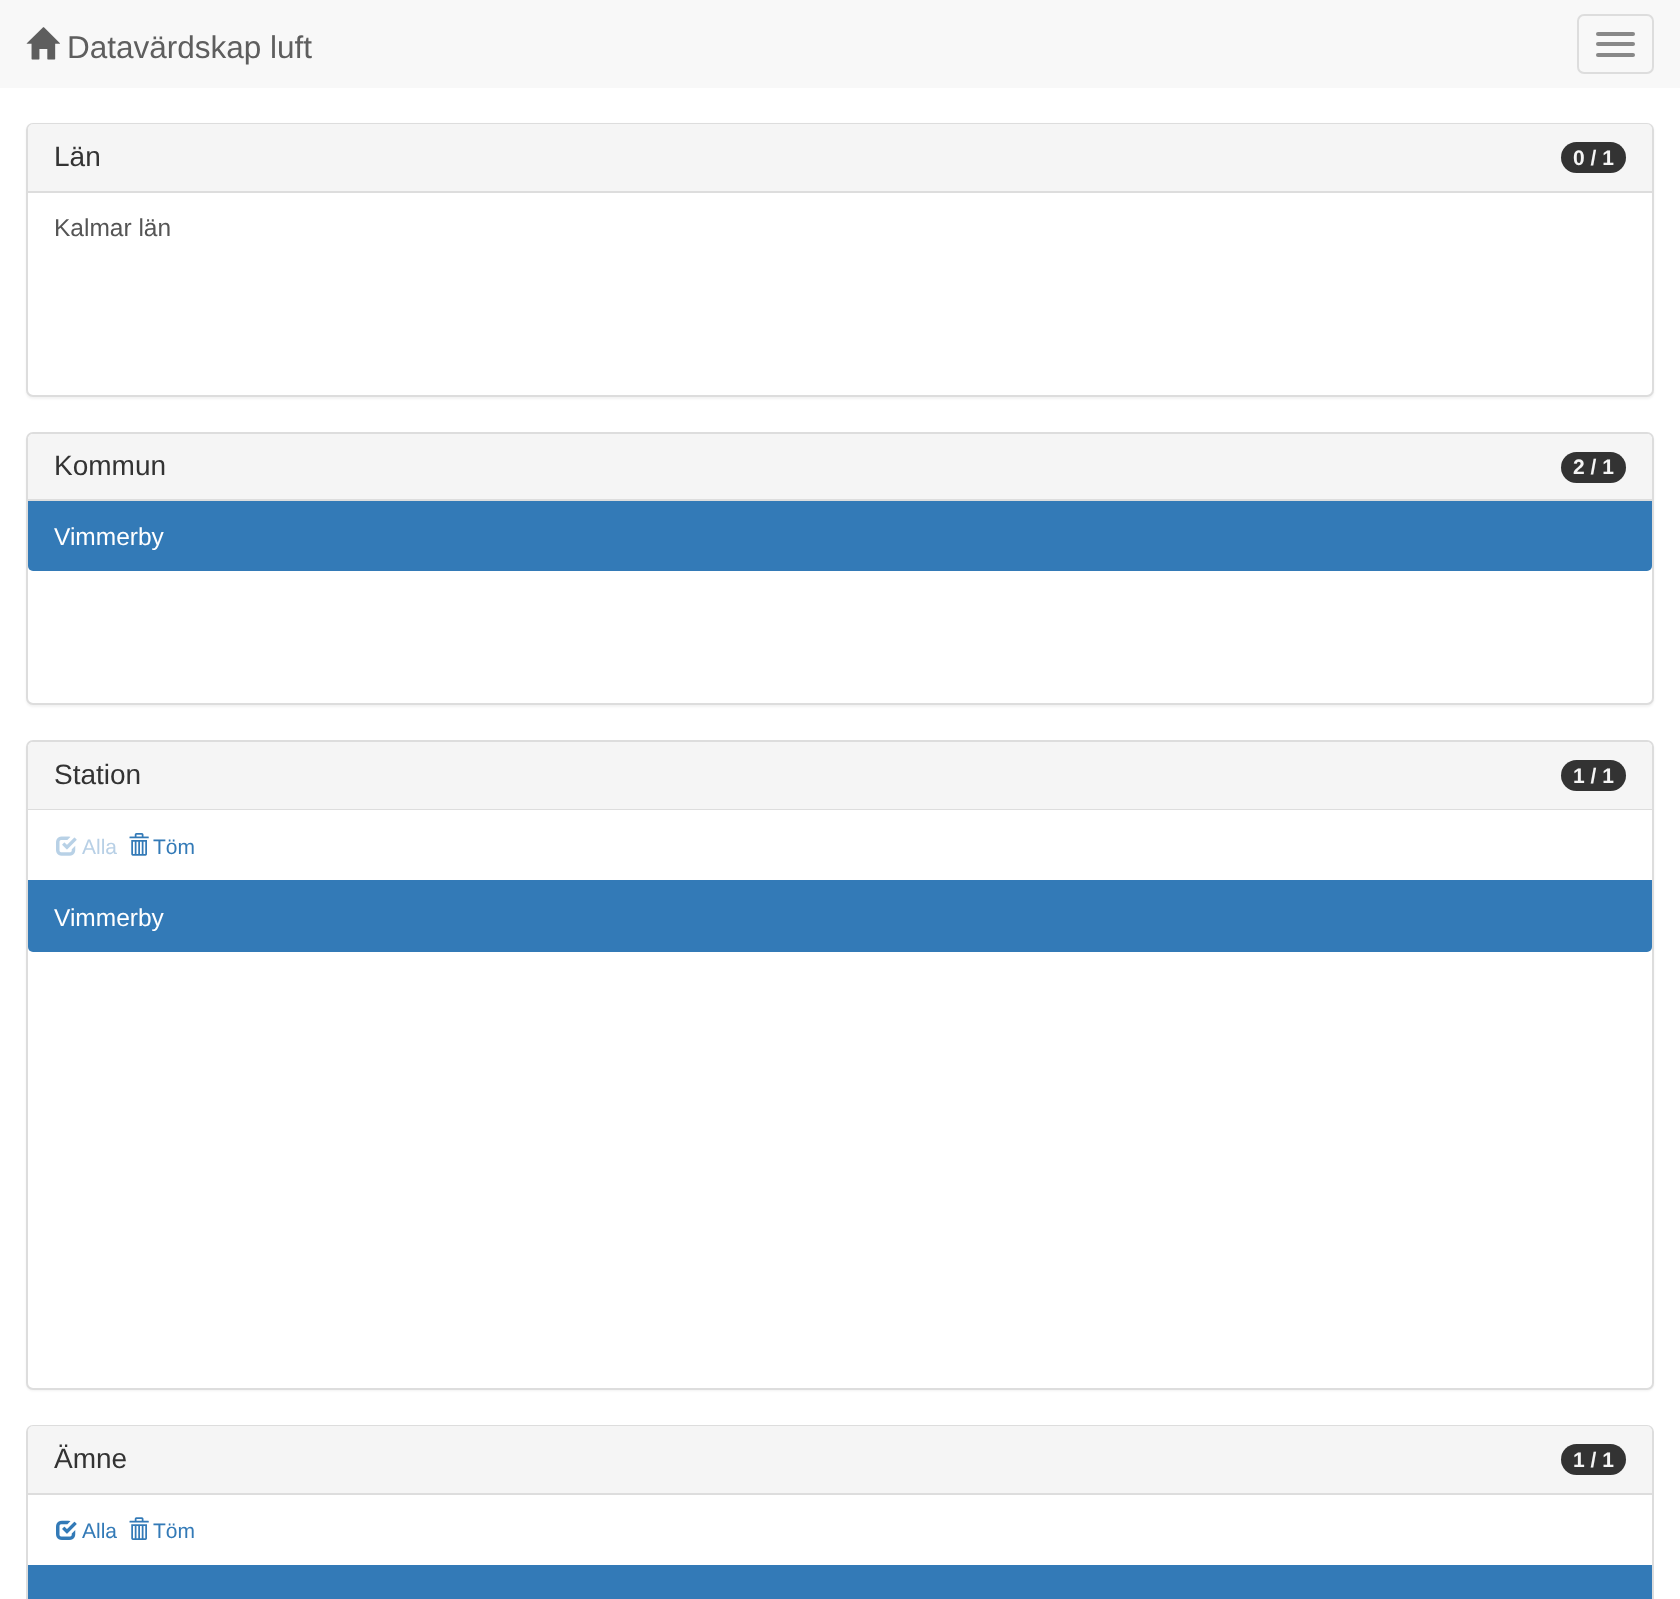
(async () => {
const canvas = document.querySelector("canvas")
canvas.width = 1680
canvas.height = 1599
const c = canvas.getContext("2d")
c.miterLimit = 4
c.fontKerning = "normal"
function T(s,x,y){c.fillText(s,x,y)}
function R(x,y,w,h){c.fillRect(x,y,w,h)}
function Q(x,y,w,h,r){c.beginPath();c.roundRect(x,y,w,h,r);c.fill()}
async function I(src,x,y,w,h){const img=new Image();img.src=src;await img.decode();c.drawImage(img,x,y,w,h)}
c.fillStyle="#fff"
R(0,0,1680,1599)
c.fillStyle="#f8f8f8"
R(0,0,1680,88)
await I("1.png",26,27,34,33)
c.font="31.5px Liberation Sans"
c.fillStyle="#5e5e5e"
T("Datavärdskap luft",67,58)
c.beginPath()
c.roundRect(1578,15,75,58,6)
c.strokeStyle="#ddd"
c.lineWidth=2
c.stroke()
c.fillStyle="#888"
Q(1596,32,39,4,2)
Q(1596,42,39,4,2)
Q(1596,53,39,4,2)
c.fillStyle="#0000000d"
c.filter="blur(1px)"
c.beginPath()
c.roundRect(26,124,1628,275,7)
c.fill()
c.filter="none"
c.fillStyle="#fff"
c.beginPath()
c.roundRect(27,124,1626,272,6)
c.fill()
c.stroke()
c.fillStyle="#f5f5f5"
c.beginPath()
c.roundRect(28,124,1624,69,[5,5,0,0])
c.fill()
c.fillStyle="#ddd"
R(28,191,1624,2)
c.font="28px Liberation Sans"
c.fillStyle="#333"
T("Län",54,166)
Q(1561,142,65,31,15.5)
c.font="bold 21px Liberation Sans"
c.fillStyle="#f5f5f5"
T("0 / 1",1573,165)
c.font="24.5px Liberation Sans"
c.fillStyle="#555"
T("Kalmar län",54,236)
c.fillStyle="#0000000d"
c.filter="blur(1px)"
c.beginPath()
c.roundRect(26,434,1628,273,7)
c.fill()
c.filter="none"
c.fillStyle="#fff"
c.beginPath()
c.roundRect(27,433,1626,271,6)
c.fill()
c.stroke()
c.fillStyle="#f5f5f5"
c.beginPath()
c.roundRect(28,434,1624,67,[5,5,0,0])
c.fill()
c.fillStyle="#ddd"
R(28,499,1624,2)
c.font="28px Liberation Sans"
c.fillStyle="#333"
T("Kommun",54,475)
Q(1561,452,65,31,15.5)
c.font="bold 21px Liberation Sans"
c.fillStyle="#f5f5f5"
T("2 / 1",1573,474)
c.fillStyle="#337ab7"
c.beginPath()
c.roundRect(28,501,1624,70,[0,0,5,5])
c.fill()
c.font="24.5px Liberation Sans"
c.fillStyle="#fff"
T("Vimmerby",54,545)
c.fillStyle="#0000000d"
c.filter="blur(1px)"
c.beginPath()
c.roundRect(26,742,1628,649,7)
c.fill()
c.filter="none"
c.fillStyle="#fff"
c.beginPath()
c.roundRect(27,741,1626,648,6)
c.fill()
c.stroke()
c.fillStyle="#f5f5f5"
c.beginPath()
c.roundRect(28,742,1624,68,[5,5,0,0])
c.fill()
c.fillStyle="#ddd"
R(28,809,1624,1)
c.font="28px Liberation Sans"
c.fillStyle="#333"
T("Station",54,784)
Q(1561,760,65,31,15.5)
c.font="bold 21px Liberation Sans"
c.fillStyle="#f5f5f5"
T("1 / 1",1573,783)
await I("2.png",56,836,21,20)
c.font="21px Liberation Sans"
c.fillStyle="#b8d0e6"
T("Alla",82,854)
await I("3.png",129,833,20,23)
c.fillStyle="#337ab7"
T("Töm",153,854)
c.beginPath()
c.roundRect(28,880,1624,72,[0,0,5,5])
c.fill()
c.font="24.5px Liberation Sans"
c.fillStyle="#fff"
T("Vimmerby",54,926)
c.beginPath()
c.roundRect(27,1426,1626,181,6)
c.stroke()
c.fillStyle="#f5f5f5"
c.beginPath()
c.roundRect(28,1426,1624,69,[5,5,0,0])
c.fill()
c.fillStyle="#ddd"
R(28,1493,1624,2)
c.font="28px Liberation Sans"
c.fillStyle="#333"
T("Ämne",54,1468)
Q(1561,1444,65,31,15.5)
c.font="bold 21px Liberation Sans"
c.fillStyle="#f5f5f5"
T("1 / 1",1573,1467)
await I("4.png",56,1520,21,20)
c.font="21px Liberation Sans"
c.fillStyle="#337ab7"
T("Alla",82,1538)
await I("5.png",129,1517,20,23)
T("Töm",153,1538)
R(28,1565,1624,34)
})()
